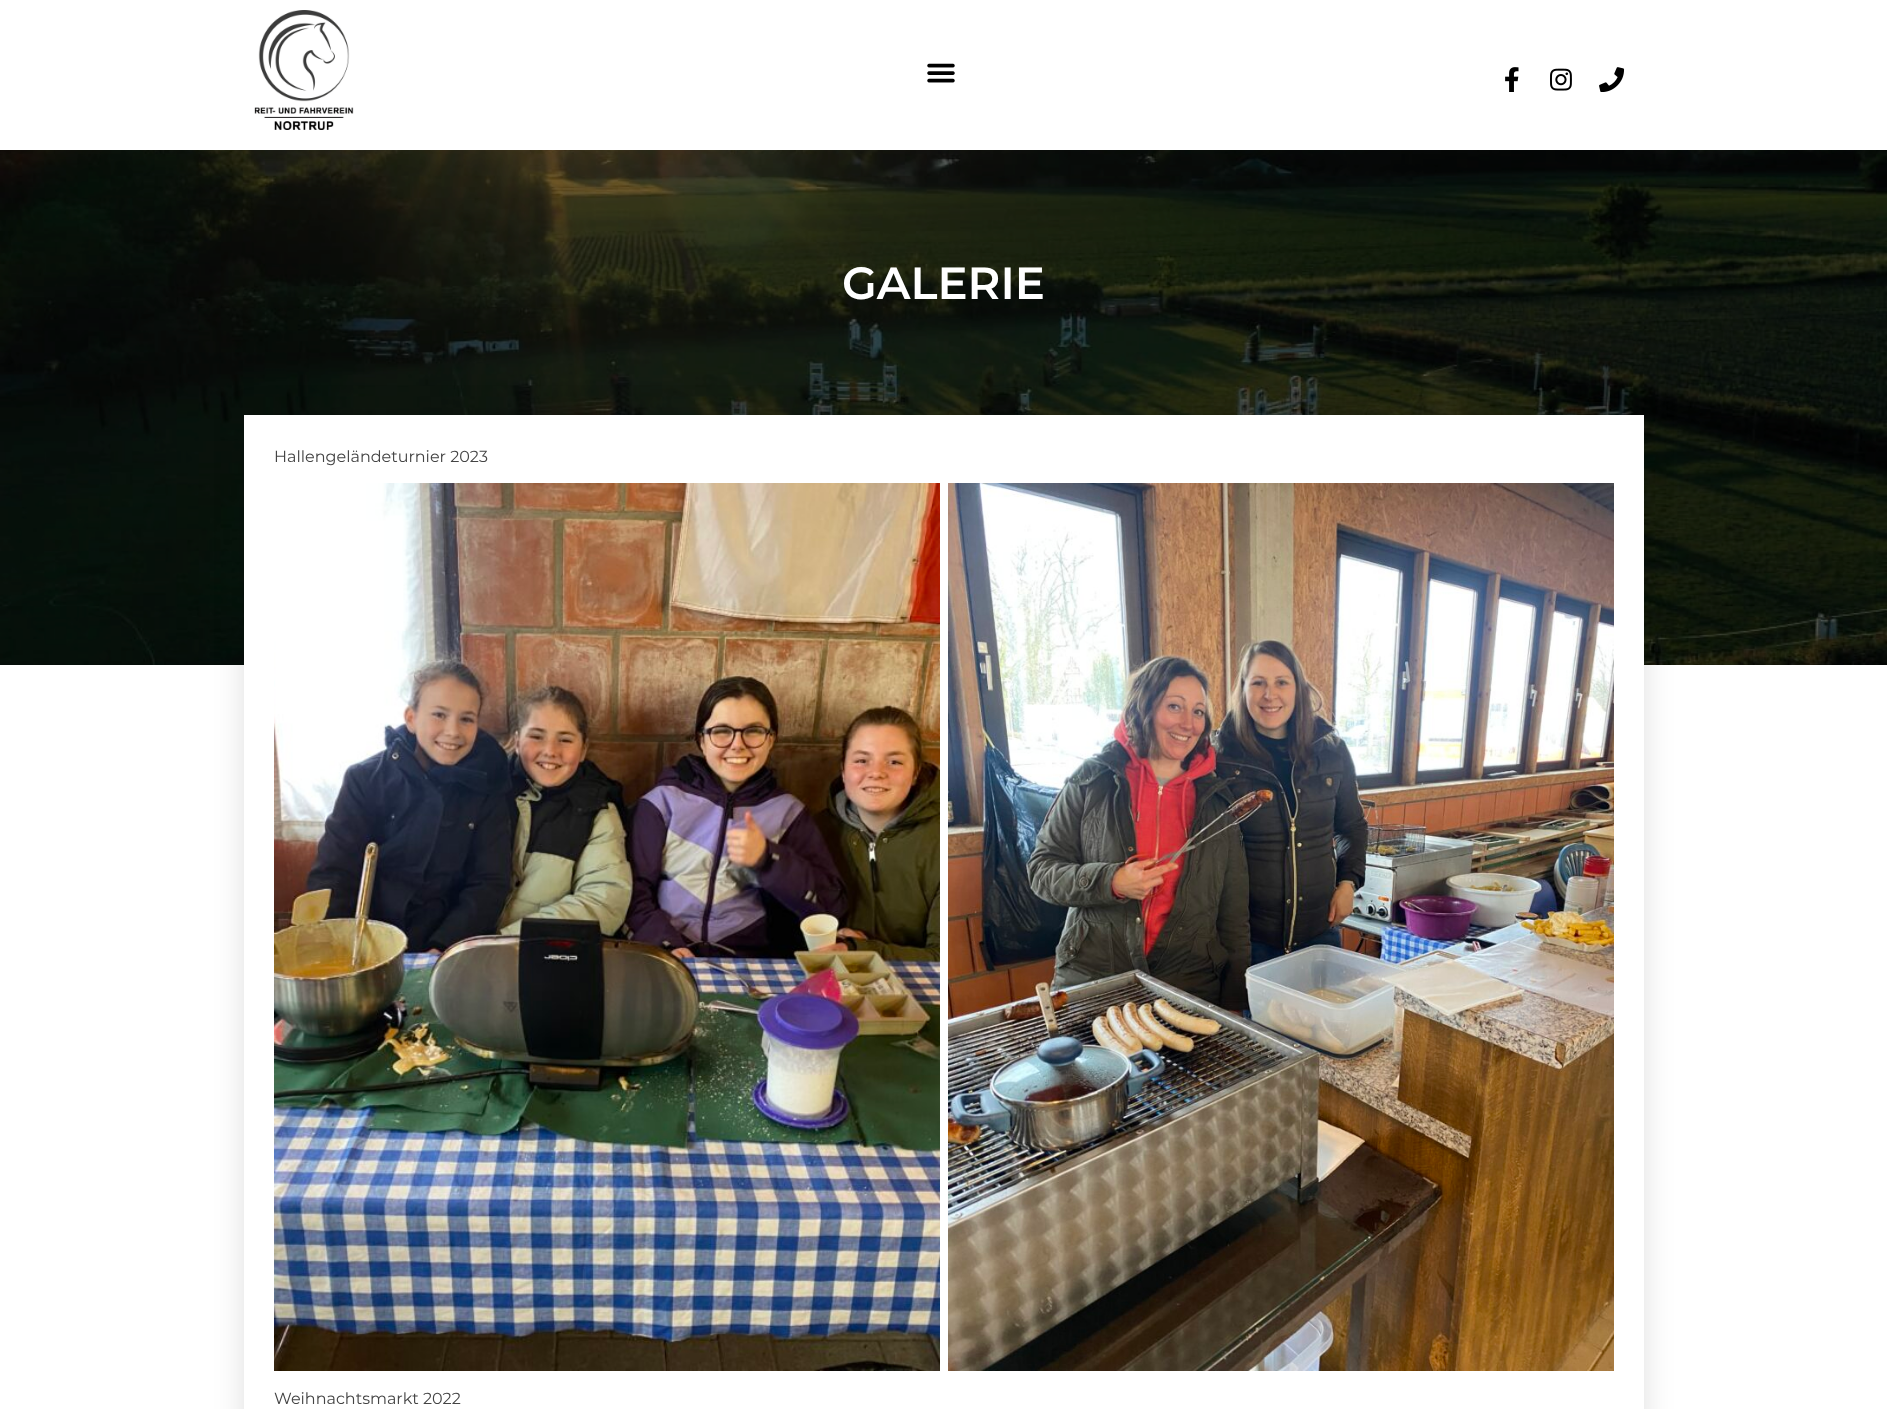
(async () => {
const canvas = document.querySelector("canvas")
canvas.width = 1887
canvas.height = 1409
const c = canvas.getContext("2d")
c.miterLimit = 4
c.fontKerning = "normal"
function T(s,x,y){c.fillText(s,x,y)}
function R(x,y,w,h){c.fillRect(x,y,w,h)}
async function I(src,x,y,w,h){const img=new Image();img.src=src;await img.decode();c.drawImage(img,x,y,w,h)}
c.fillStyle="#fff"
R(0,0,1887,1409)
await I("1.png",254,10,100,120)
await I("2.png",1505,67,14,25)
await I("3.png",1550,68,22,23)
await I("4.png",1599,67,26,25)
await I("5.png",927,63,28,20)
await I("6.png",0,150,1887,515)
c.font="600 45px Montserrat"
T("GALERIE",842,299)
c.fillStyle="#00000021"
c.filter="blur(15px)"
c.beginPath()
c.rect(244,415,1400,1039)
c.fill()
c.filter="none"
c.fillStyle="#fff"
R(244,415,1400,994)
c.font="16px Montserrat"
c.fillStyle="#444"
T("Hallengeländeturnier 2023",274,462)
await I("7.png",274,483,666,888)
await I("8.png",948,483,666,888)
T("Weihnachtsmarkt 2022",274,1404)
})()
